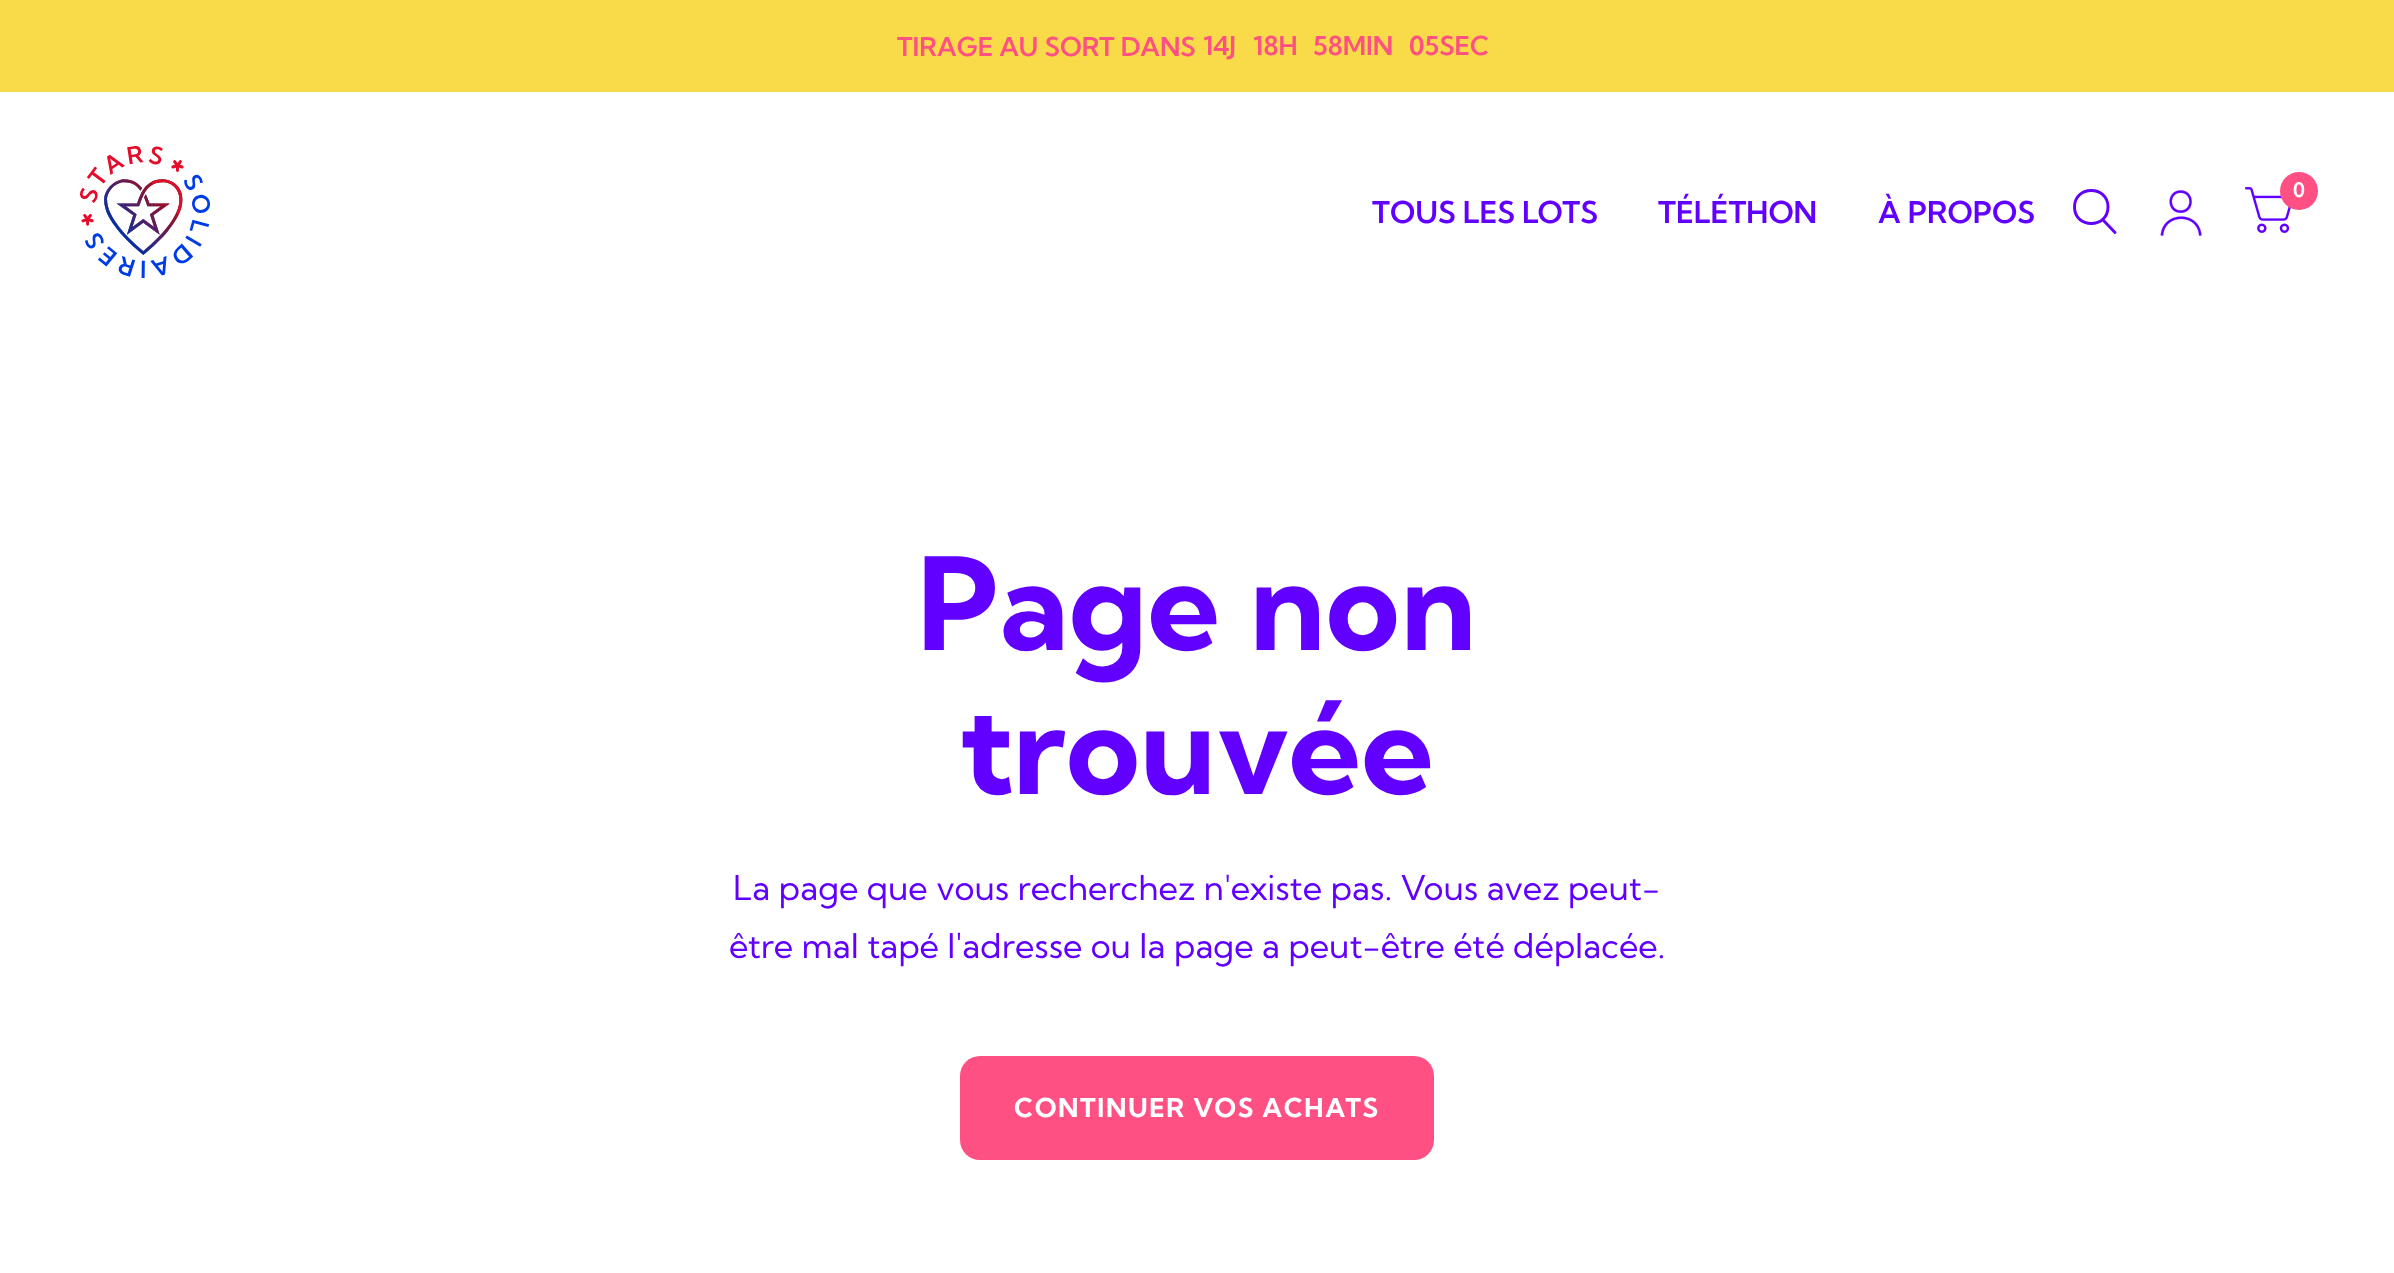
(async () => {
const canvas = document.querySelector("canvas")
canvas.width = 2394
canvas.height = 1273
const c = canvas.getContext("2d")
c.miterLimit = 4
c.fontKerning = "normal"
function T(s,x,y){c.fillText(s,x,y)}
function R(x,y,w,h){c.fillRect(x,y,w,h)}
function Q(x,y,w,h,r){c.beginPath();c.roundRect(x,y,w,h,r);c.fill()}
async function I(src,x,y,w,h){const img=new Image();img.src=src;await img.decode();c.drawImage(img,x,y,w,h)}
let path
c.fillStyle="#fff"
R(0,0,2394,1273)
c.fillStyle="#f9db4a"
R(0,0,2394,92)
c.font="600 26px Kumbh Sans"
c.fillStyle="#ff5084"
T("TIRAGE AU SORT DANS",897,56)
T("14J",1203,55)
T("18H",1253,55)
T("58MIN",1313,55)
T("05SEC",1409,55)
await I("1.png",80,146,130,132)
path = new Path2D("M2103.5 220.5l11.5 12m-7-25.5c0 22-33.5 22-33.5 0c0-22 33.5-22 33.5 0z")
c.strokeStyle="#6100ff"
c.lineWidth=2.9
c.lineCap="round"
c.lineJoin="round"
c.stroke(path)
await I("2.png",2160,190,42,46)
await I("3.png",2245,187,46,46)
c.beginPath()
c.arc(2299,191,19,0,7)
c.fill()
c.font="600 20px Kumbh Sans"
c.fillStyle="#fff"
T("0",2293,197)
c.font="600 30px Kumbh Sans"
c.fillStyle="#6100ff"
T("TOUS LES LOTS",1372,223)
T("TÉLÉTHON",1658,223)
T("À PROPOS",1878,223)
c.font="bold 128px Kumbh Sans"
T("Page non",917,650)
T("trouvée",960,794)
c.font="34px Kumbh Sans"
T("La page que vous recherchez n'existe pas. Vous avez peut-",733,900)
T("être mal tapé l'adresse ou la page a peut-être été déplacée.",729,958)
c.fillStyle="#ff5084"
Q(960,1056,474,104,20)
c.letterSpacing="1.6px"
c.font="bold 26px Kumbh Sans"
c.fillStyle="#fff"
T("CONTINUER VOS ACHATS",1014,1117)
})()
